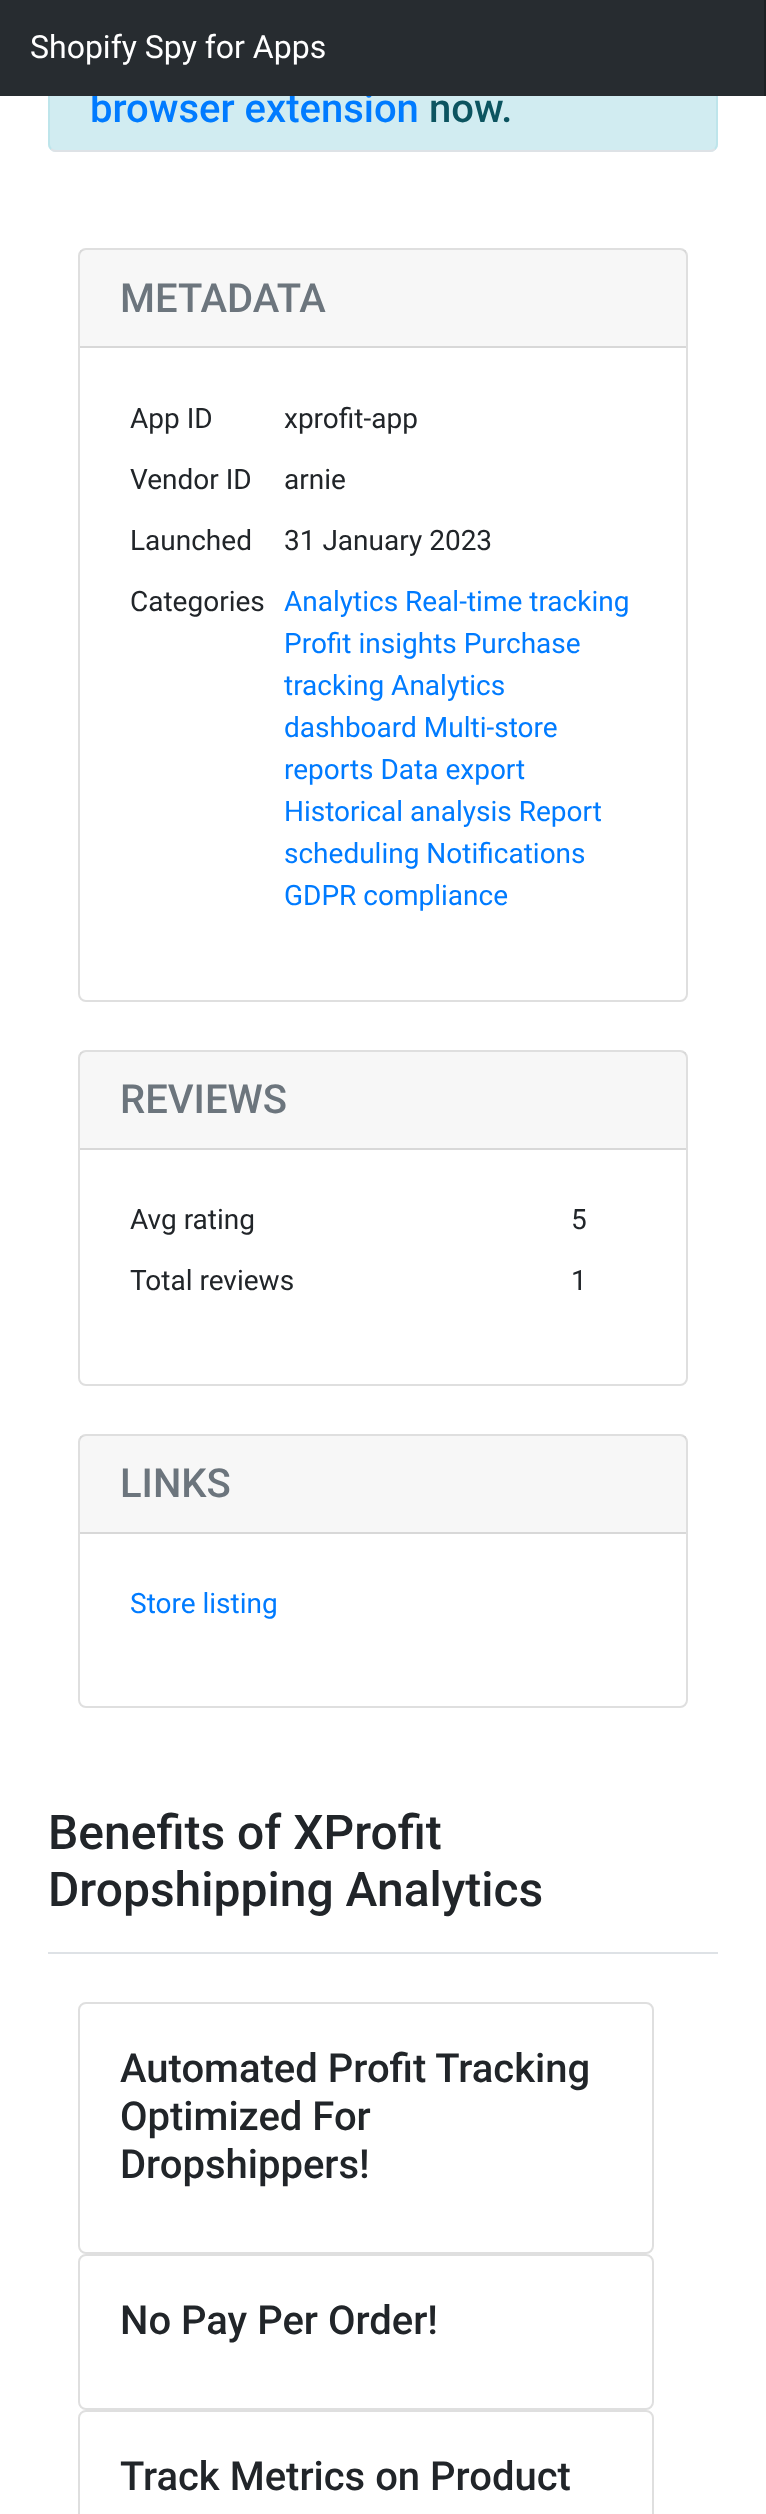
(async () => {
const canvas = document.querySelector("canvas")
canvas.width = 766
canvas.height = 2514
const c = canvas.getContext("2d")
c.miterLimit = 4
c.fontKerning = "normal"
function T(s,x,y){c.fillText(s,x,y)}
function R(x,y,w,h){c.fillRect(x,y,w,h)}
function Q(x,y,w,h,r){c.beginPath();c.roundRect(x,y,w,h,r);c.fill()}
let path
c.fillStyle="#fff"
R(0,0,766,2514)
c.fillStyle="#d1ecf1"
Q(48,-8,670,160,8)
path = new Path2D("M715 149c-1.5 1.5-3 2-5 2h-654c-2 0-3.5-.5-5-2")
c.strokeStyle="#dee2e6"
c.lineWidth=2
c.stroke(path)
path = new Path2D("M51 149c-1.5-1.5-2-3-2-5v-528c0-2 .5-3.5 2-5c1.5-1.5 3-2 5-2h654c2 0 3.5 .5 5 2c1.5 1.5 2 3 2 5v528c0 2-.5 3.5-2 5")
c.strokeStyle="#bee5eb"
c.stroke(path)
c.font="500 40px Roboto"
c.fillStyle="#007bff"
T("browser extension",90,122)
c.fillStyle="#272c30"
R(0,0,764,96)
c.fillStyle="#1d2124"
R(764,0,2,96)
c.font="32px Roboto"
c.fillStyle="#fff"
T("Shopify Spy for Apps",30,58)
c.font="500 40px Roboto"
c.fillStyle="#0c5460"
T("now.",429,122)
c.beginPath()
c.roundRect(79,249,608,752,7)
c.strokeStyle="#dfdfdf"
c.stroke()
c.fillStyle="#00000008"
R(80,250,606,96)
c.fillStyle="#d8d8d8"
R(80,346,606,2)
c.fillStyle="#6c757d"
T("METADATA",120,312)
c.font="28px Roboto"
c.fillStyle="#212529"
T("App ID",130,428)
T("xprofit-app",284,428)
T("Vendor ID",130,489)
T("arnie",284,489)
T("Launched",130,550)
T("31 January 2023",284,550)
T("Categories",130,611)
c.fillStyle="#007bff"
T("Analytics Real-time tracking",284,611)
T("Profit insights Purchase",284,653)
T("tracking Analytics",284,695)
T("dashboard Multi-store",284,737)
T("reports Data export",284,779)
T("Historical analysis Report",284,821)
T("scheduling Notifications",284,863)
T("GDPR compliance",284,905)
c.beginPath()
c.roundRect(79,1051,608,334,7)
c.stroke()
c.fillStyle="#00000008"
R(80,1052,606,96)
c.fillStyle="#d8d8d8"
R(80,1148,606,2)
c.font="500 40px Roboto"
c.fillStyle="#6c757d"
T("REVIEWS",120,1113)
c.font="28px Roboto"
c.fillStyle="#212529"
T("Avg rating",130,1229)
T("5",571,1229)
T("Total reviews",130,1290)
T("1",571,1290)
c.beginPath()
c.roundRect(79,1435,608,272,7)
c.stroke()
c.fillStyle="#00000008"
R(80,1436,606,96)
c.fillStyle="#d8d8d8"
R(80,1532,606,2)
c.font="500 40px Roboto"
c.fillStyle="#6c757d"
T("LINKS",120,1497)
c.font="28px Roboto"
c.fillStyle="#007bff"
T("Store listing",130,1613)
c.fillStyle="#dee2e6"
R(48,1952,670,2)
c.font="500 48px Roboto"
c.fillStyle="#212529"
T("Benefits of XProfit",48,1849)
T("Dropshipping Analytics",48,1906)
c.beginPath()
c.roundRect(79,2003,574,250,7)
c.stroke()
c.font="500 40px Roboto"
T("Automated Profit Tracking",120,2082)
T("Optimized For",120,2130)
T("Dropshippers!",120,2178)
c.beginPath()
c.roundRect(79,2255,574,154,7)
c.stroke()
T("No Pay Per Order!",120,2334)
c.beginPath()
c.roundRect(79,2411,574,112,7)
c.stroke()
T("Track Metrics on Product",120,2490)
})()
